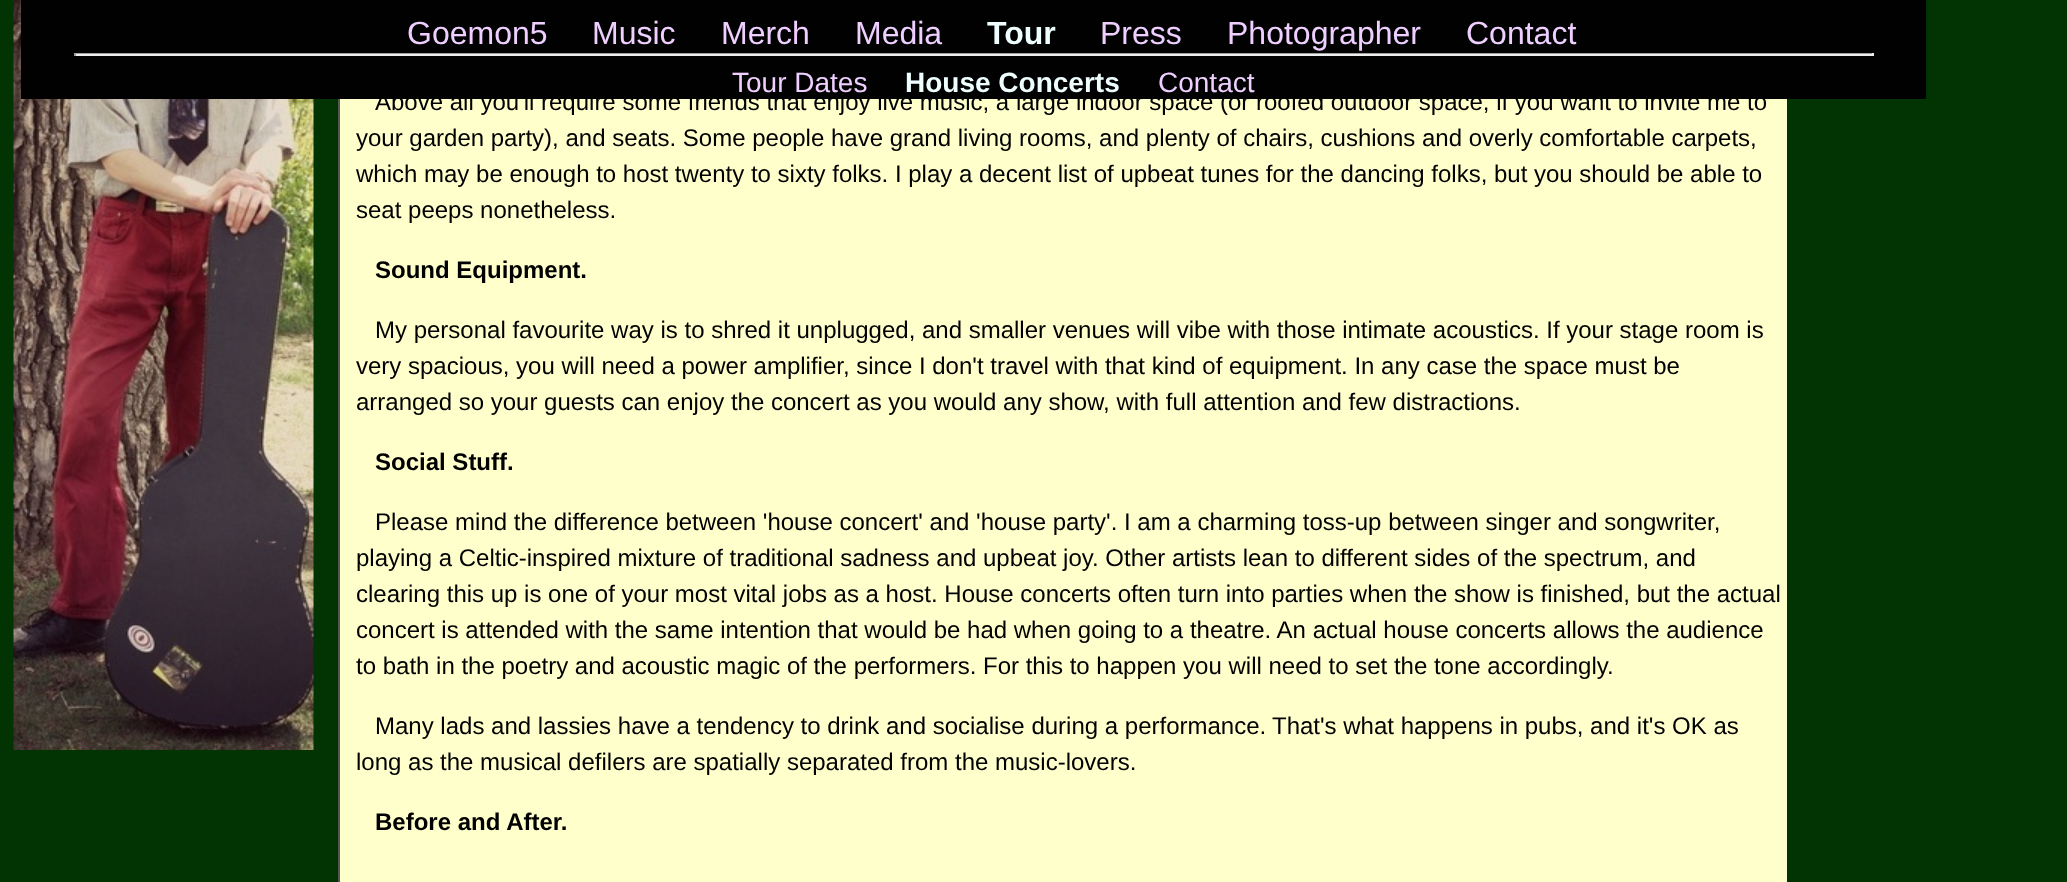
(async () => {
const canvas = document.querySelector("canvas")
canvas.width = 2067
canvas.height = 882
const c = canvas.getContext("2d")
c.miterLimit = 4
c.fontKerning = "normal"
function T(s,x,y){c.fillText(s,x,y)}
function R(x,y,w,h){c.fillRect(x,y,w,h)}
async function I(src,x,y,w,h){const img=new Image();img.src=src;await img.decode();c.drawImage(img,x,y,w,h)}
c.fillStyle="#023302"
R(0,0,2067,882)
await I("1.png",13,0,301,750)
c.fillStyle="#ffc"
R(340,99,1447,783)
c.font="24px Liberation Sans"
c.fillStyle="#000"
T("Above all you'll require some friends that enjoy live music, a large indoor space (or roofed outdoor space, if you want to invite me to",375,110)
c.fillStyle="#010101"
R(21,0,1905,99)
c.font="32px Liberation Sans"
c.fillStyle="#eecfff"
T("Goemon5",407,44)
T("Music",592,44)
T("Merch",721,44)
T("Media",855,44)
c.font="bold 32px Liberation Sans"
c.fillStyle="#eefeff"
T("Tour",987,44)
c.font="32px Liberation Sans"
c.fillStyle="#eecfff"
T("Press",1100,44)
T("Photographer",1227,44)
T("Contact",1466,44)
c.fillStyle="#9f9f9f"
R(74,53,1800,1)
c.fillStyle="#eee"
R(1872,53,2,3)
R(74,54,1800,2)
c.fillStyle="#9f9f9f"
R(74,53,2,3)
c.font="28px Liberation Sans"
c.fillStyle="#eecfff"
T("Tour Dates",732,92)
c.font="bold 28px Liberation Sans"
c.fillStyle="#eefeff"
T("House Concerts",905,92)
c.font="28px Liberation Sans"
c.fillStyle="#eecfff"
T("Contact",1158,92)
c.fillStyle="#555"
R(338,99,2,783)
c.font="24px Liberation Sans"
c.fillStyle="#000"
T("your garden party), and seats. Some people have grand living rooms, and plenty of chairs, cushions and overly comfortable carpets,",356,146)
T("which may be enough to host twenty to sixty folks. I play a decent list of upbeat tunes for the dancing folks, but you should be able to",356,182)
T("seat peeps nonetheless.",356,218)
c.font="bold 24px Liberation Sans"
T("Sound Equipment.",375,278)
c.font="24px Liberation Sans"
T("My personal favourite way is to shred it unplugged, and smaller venues will vibe with those intimate acoustics. If your stage room is",375,338)
T("very spacious, you will need a power amplifier, since I don't travel with that kind of equipment. In any case the space must be",356,374)
T("arranged so your guests can enjoy the concert as you would any show, with full attention and few distractions.",356,410)
c.font="bold 24px Liberation Sans"
T("Social Stuff.",375,470)
c.font="24px Liberation Sans"
T("Please mind the difference between 'house concert' and 'house party'. I am a charming toss-up between singer and songwriter,",375,530)
T("playing a Celtic-inspired mixture of traditional sadness and upbeat joy. Other artists lean to different sides of the spectrum, and",356,566)
T("clearing this up is one of your most vital jobs as a host. House concerts often turn into parties when the show is finished, but the actual",356,602)
T("concert is attended with the same intention that would be had when going to a theatre. An actual house concerts allows the audience",356,638)
T("to bath in the poetry and acoustic magic of the performers. For this to happen you will need to set the tone accordingly.",356,674)
T("Many lads and lassies have a tendency to drink and socialise during a performance.",375,734)
T("That's what happens in pubs, and it's OK as",1272,734)
T("long as the musical defilers are spatially separated from the music-lovers.",356,770)
c.font="bold 24px Liberation Sans"
T("Before and After.",375,830)
})()
